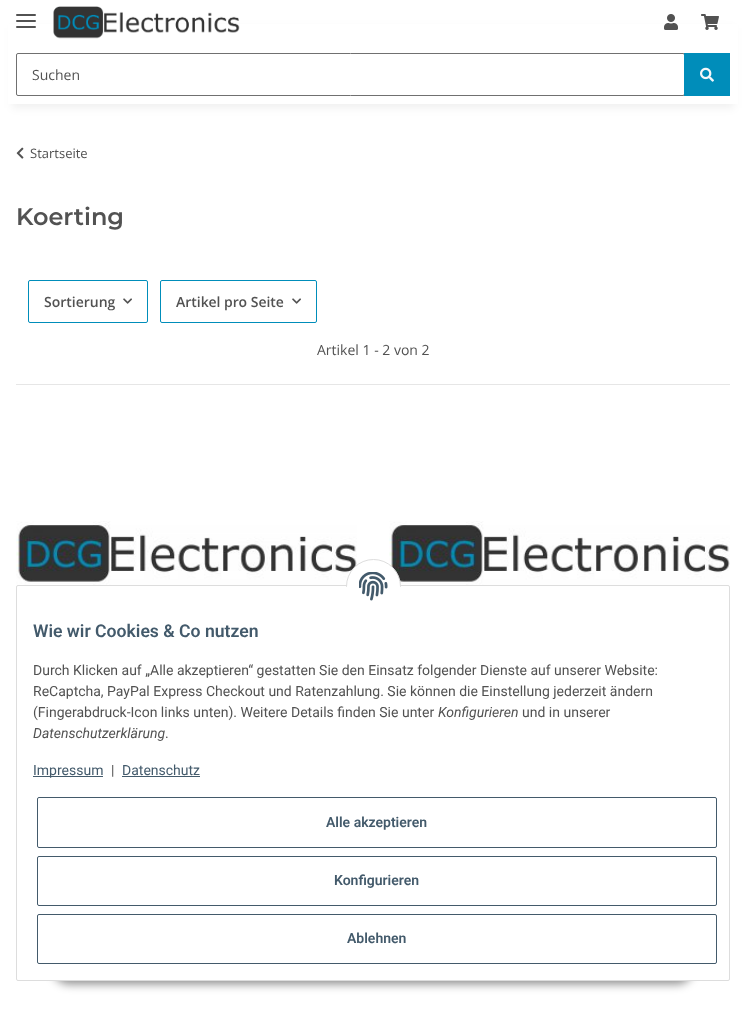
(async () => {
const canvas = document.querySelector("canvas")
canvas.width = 746
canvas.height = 1013
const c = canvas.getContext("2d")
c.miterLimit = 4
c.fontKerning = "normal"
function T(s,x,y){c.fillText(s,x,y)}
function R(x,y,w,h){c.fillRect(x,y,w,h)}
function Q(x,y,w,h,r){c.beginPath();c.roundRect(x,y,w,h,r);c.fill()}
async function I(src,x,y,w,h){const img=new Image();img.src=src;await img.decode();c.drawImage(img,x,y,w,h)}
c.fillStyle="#fff"
R(0,0,746,1013)
c.fillStyle="#0000000f"
c.filter="blur(4.5px)"
c.beginPath()
c.rect(12,28,722,80)
c.fill()
c.filter="none"
c.fillStyle="#fff"
R(8,24,730,80)
c.fillStyle="#525252"
Q(16,20,20,2,1)
Q(16,14,20,2,1)
Q(16,26,20,2,1)
await I("1.png",53,6,187,33)
await I("2.png",664,14,14,16)
await I("3.png",701,14,18,16)
c.beginPath()
c.roundRect(16.5,53.5,668,42,1.5)
c.strokeStyle="#707070"
c.stroke()
c.font="14px Open Sans"
T("Suchen",32,80)
c.fillStyle="#008dba"
R(684,53,46,43)
await I("4.png",700,67,14,15)
await I("5.png",16,147,8,12)
c.font="13px Open Sans"
c.fillStyle="#525252"
T("Startseite",30,158)
c.font="600 24px Montserrat"
T("Koerting",16,225)
c.beginPath()
c.roundRect(28.5,280.5,119,42,1.5)
c.strokeStyle="#008dba"
c.stroke()
c.font="600 14px Open Sans"
T("Sortierung",44,307)
await I("6.png",123,298,9,6)
c.beginPath()
c.roundRect(160.5,280.5,156,42,1.5)
c.stroke()
T("Artikel pro Seite",176,307)
await I("6.png",292,298,9,6)
c.font="14px Open Sans"
T("Artikel 1 - 2 von 2",317,355)
c.fillStyle="#e6e6e6"
R(16,384,714,1)
await I("7.png",16,521,341,66)
await I("7.png",389,521,341,66)
c.fillStyle="#00000073"
c.filter="blur(5px)"
c.beginPath()
c.roundRect(53,952,640,32,16)
c.fill()
c.filter="none"
c.fillStyle="#fff"
c.beginPath()
c.roundRect(16.5,585.5,713,395,1.5)
c.fill()
c.strokeStyle="#ddd"
c.stroke()
c.beginPath()
c.arc(373.5,586.5,27,0,7)
c.fill()
c.stroke()
R(346,587,55,27)
await I("8.png",359,572,29,29)
c.font="600 17.6px Roboto"
c.fillStyle="#435a6b"
T("Wie wir Cookies & Co nutzen",33,637)
c.font="14px Roboto"
c.fillStyle="#525252"
T("Durch Klicken auf „Alle akzeptieren“ gestatten Sie den Einsatz folgender Dienste auf unserer Website:",33,675)
T("ReCaptcha, PayPal Express Checkout und Ratenzahlung. Sie können die Einstellung jederzeit ändern",33,696)
T("(Fingerabdruck-Icon links unten). Weitere Details finden Sie unter",33,717)
c.font="italic 14px Roboto"
T("Konfigurieren",438,717)
c.font="14px Roboto"
T("und in unserer",522,717)
c.font="italic 14px Roboto"
T("Datenschutzerklärung",33,738)
c.font="14px Roboto"
T(".",165,738)
c.fillStyle="#435a6b"
R(33,776,70,1)
T("Impressum",33,775)
c.fillStyle="#525252"
T("|",111,775)
c.fillStyle="#435a6b"
T("Datenschutz",122,775)
R(122,776,78,1)
c.beginPath()
c.roundRect(37.5,797.5,679,50,1.5)
c.strokeStyle="#435a6b"
c.stroke()
c.font="600 14px Roboto"
T("Alle akzeptieren",326,827)
c.beginPath()
c.roundRect(37.5,856.5,679,49,1.5)
c.stroke()
T("Konfigurieren",334,885)
c.beginPath()
c.roundRect(37.5,914.5,679,49,1.5)
c.stroke()
T("Ablehnen",347,943)
})()
